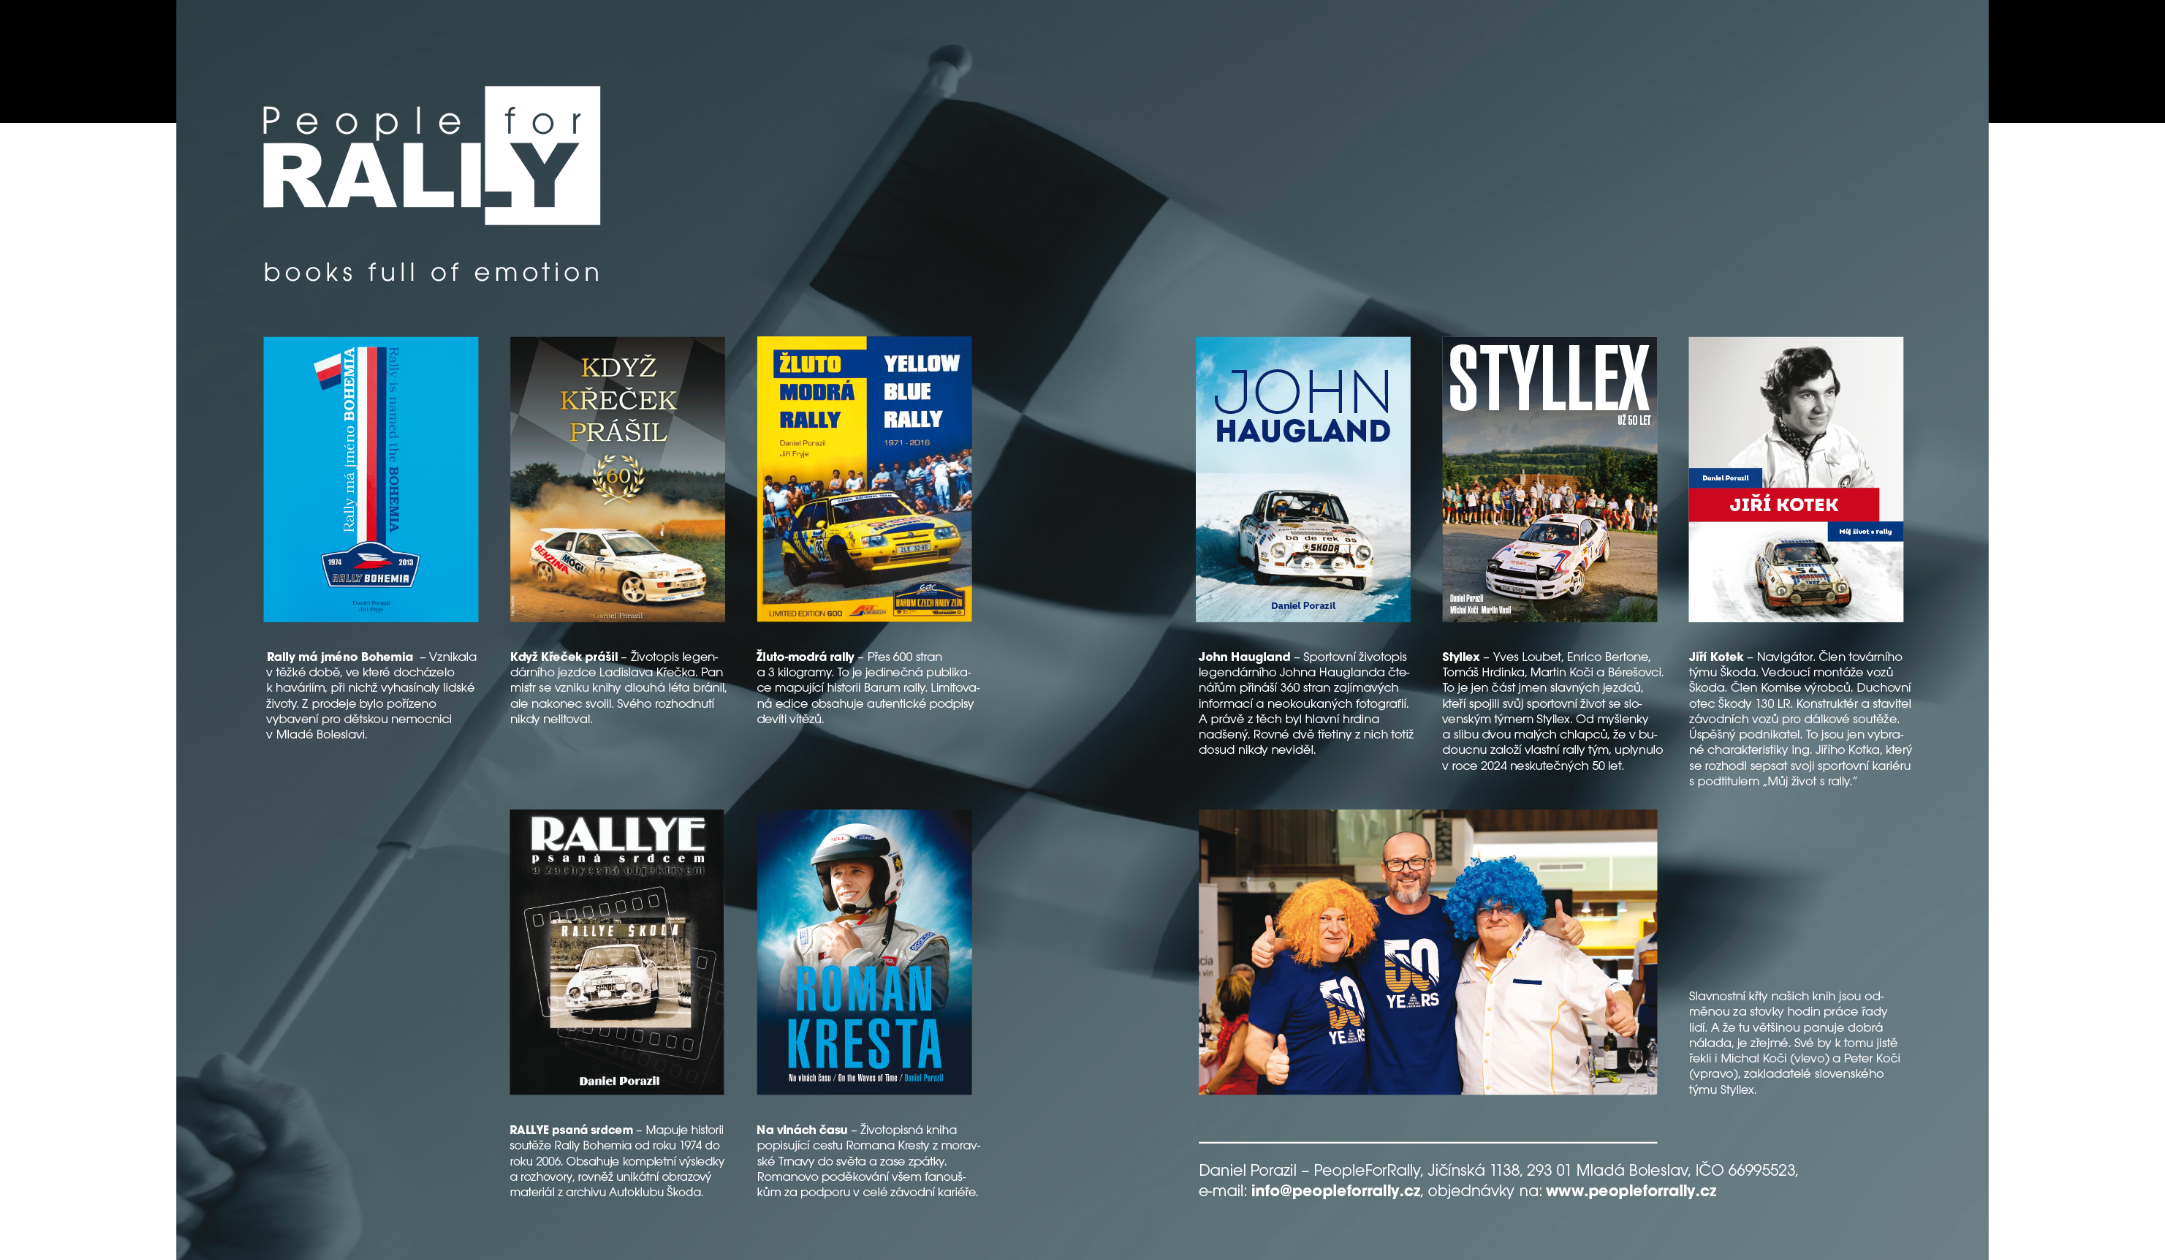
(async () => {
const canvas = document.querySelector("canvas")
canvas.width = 2165
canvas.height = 1260
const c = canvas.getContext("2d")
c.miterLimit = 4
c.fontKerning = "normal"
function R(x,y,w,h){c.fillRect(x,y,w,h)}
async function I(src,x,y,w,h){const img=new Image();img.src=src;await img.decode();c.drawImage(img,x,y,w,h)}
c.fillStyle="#000"
R(0,0,2165,1260)
c.fillStyle="#fff"
R(0,123,2165,1137)
await I("1.png",176,0,1813,1260)
})()
